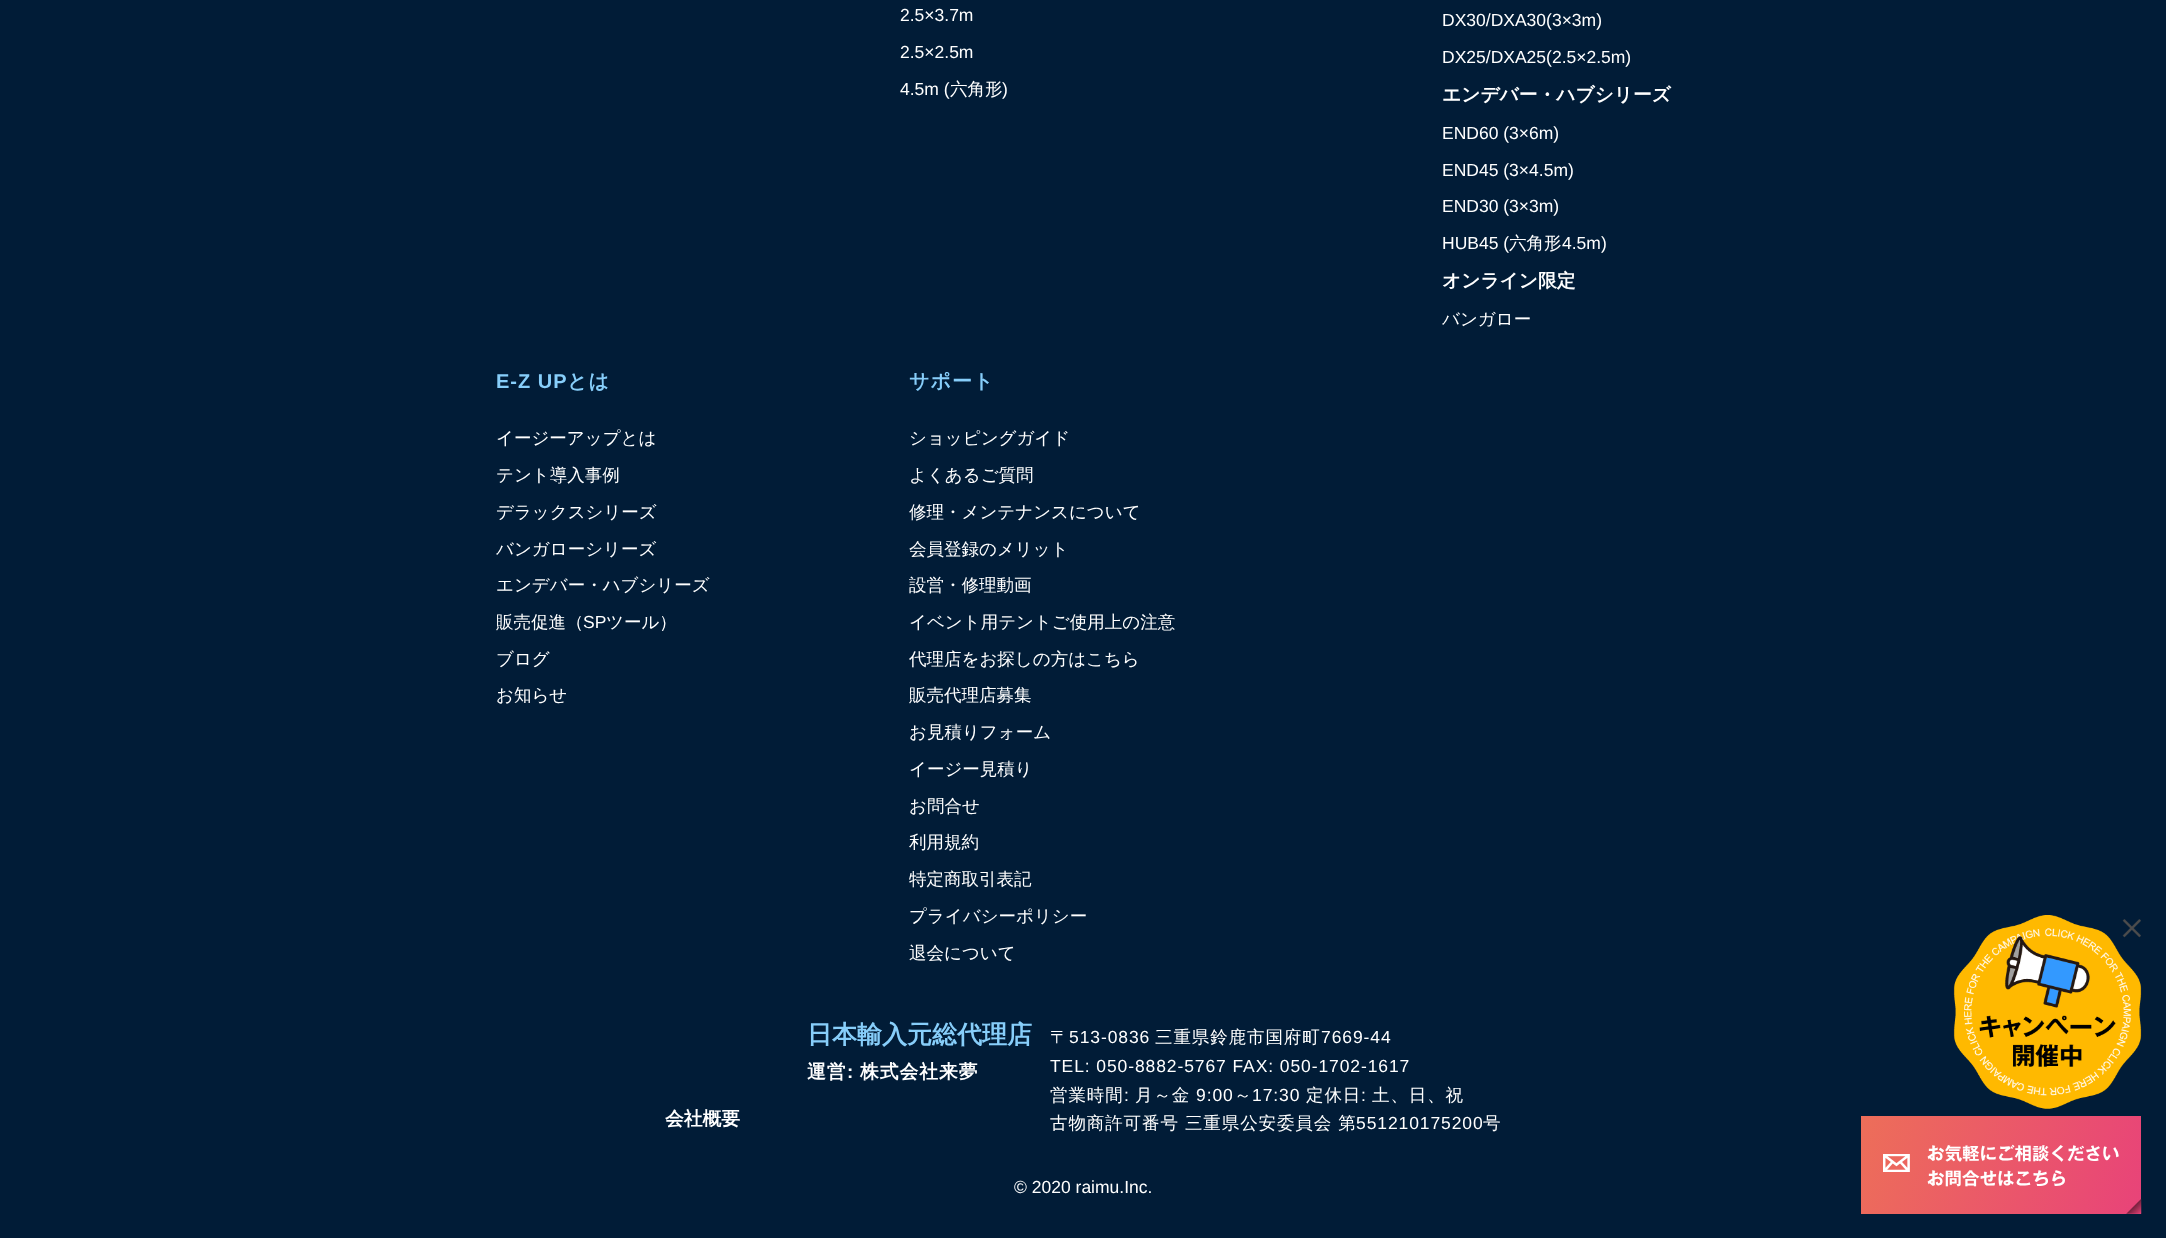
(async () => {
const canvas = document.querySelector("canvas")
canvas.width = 2166
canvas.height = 1238
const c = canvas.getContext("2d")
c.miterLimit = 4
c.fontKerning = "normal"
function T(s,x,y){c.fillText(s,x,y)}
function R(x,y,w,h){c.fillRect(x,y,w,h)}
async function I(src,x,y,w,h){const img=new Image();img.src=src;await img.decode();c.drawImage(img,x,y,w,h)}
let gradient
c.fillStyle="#011c37"
R(0,0,2166,1238)
c.font="17.5px Liberation Sans"
c.fillStyle="#fff"
T("2.5×3.7m",900,21)
T("2.5×2.5m",900,58)
T("4.5m (",900,95)
c.font="500 17.5px WenQuanYi Zen Hei"
T("六角形",950,95)
c.font="17.5px Liberation Sans"
T(")",1002,95)
T("DX30/DXA30(3×3m)",1442,26)
T("DX25/DXA25(2.5×2.5m)",1442,63)
c.font="bold 18.75px WenQuanYi Zen Hei"
T("エンデバー・ハブシリーズ",1442,101)
c.font="17.5px Liberation Sans"
T("END60 (3×6m)",1442,139)
T("END45 (3×4.5m)",1442,176)
T("END30 (3×3m)",1442,212)
T("HUB45 (",1442,249)
c.font="500 17.5px WenQuanYi Zen Hei"
T("六角形",1509,249)
c.font="17.5px Liberation Sans"
T("4.5m)",1562,249)
c.font="bold 18.75px WenQuanYi Zen Hei"
T("オンライン限定",1442,287)
c.font="500 17.5px WenQuanYi Zen Hei"
T("バンガロー",1442,325)
c.letterSpacing="1px"
c.font="bold 20px Liberation Sans"
c.fillStyle="#87cefa"
T("E-Z UP",496,388)
c.font="bold 20px WenQuanYi Zen Hei"
T("とは",567,388)
c.letterSpacing="0px"
c.font="500 17.5px WenQuanYi Zen Hei"
c.fillStyle="#fff"
T("イージーアップとは",496,444)
T("テント導入事例",496,481)
T("デラックスシリーズ",496,518)
T("バンガローシリーズ",496,555)
T("エンデバー・ハブシリーズ",496,591)
T("販売促進（",496,628)
c.font="17.5px Liberation Sans"
T("SP",583,628)
c.font="500 17.5px WenQuanYi Zen Hei"
T("ツール）",606,628)
T("ブログ",496,665)
T("お知らせ",496,701)
c.letterSpacing="1px"
c.font="bold 20px WenQuanYi Zen Hei"
c.fillStyle="#87cefa"
T("サポート",909,388)
c.letterSpacing="0px"
c.font="500 17.5px WenQuanYi Zen Hei"
c.fillStyle="#fff"
T("ショッピングガイド",909,444)
T("よくあるご質問",909,481)
T("修理・メンテナンスについて",909,518)
T("会員登録のメリット",909,555)
T("設営・修理動画",909,591)
T("イベント用テントご使用上の注意",909,628)
T("代理店をお探しの方はこちら",909,665)
T("販売代理店募集",909,701)
T("お見積りフォーム",909,738)
T("イージー見積り",909,775)
T("お問合せ",909,812)
T("利用規約",909,848)
T("特定商取引表記",909,885)
T("プライバシーポリシー",909,922)
T("退会について",909,959)
c.font="bold 25px WenQuanYi Zen Hei"
c.fillStyle="#87cefa"
T("日本輸入元総代理店",807,1043)
c.letterSpacing="1px"
c.font="bold 18.75px WenQuanYi Zen Hei"
c.fillStyle="#fff"
T("運営",807,1078)
c.font="bold 18.75px Liberation Sans"
T(":",847,1078)
c.font="bold 18.75px WenQuanYi Zen Hei"
T("株式会社来夢",860,1078)
c.letterSpacing="0px"
T("会社概要",665,1125)
c.letterSpacing="0.9px"
c.font="500 17.5px WenQuanYi Zen Hei"
T("〒",1050,1043)
c.font="17.5px Liberation Sans"
T("513-0836",1069,1043)
c.font="500 17.5px WenQuanYi Zen Hei"
T("三重県鈴鹿市国府町",1155,1043)
c.font="17.5px Liberation Sans"
T("7669-44",1321,1043)
T("TEL: 050-8882-5767 FAX: 050-1702-1617",1050,1072)
c.font="500 17.5px WenQuanYi Zen Hei"
T("営業時間",1050,1101)
c.font="17.5px Liberation Sans"
T(":",1124,1101)
c.font="500 17.5px WenQuanYi Zen Hei"
T("月～金",1135,1101)
c.font="17.5px Liberation Sans"
T("9:00",1196,1101)
c.font="500 17.5px WenQuanYi Zen Hei"
T("～",1234,1101)
c.font="17.5px Liberation Sans"
T("17:30",1252,1101)
c.font="500 17.5px WenQuanYi Zen Hei"
T("定休日",1306,1101)
c.font="17.5px Liberation Sans"
T(":",1361,1101)
c.font="500 17.5px WenQuanYi Zen Hei"
T("土、日、祝",1372,1101)
T("古物商許可番号 三重県公安委員会 第",1050,1129)
c.font="17.5px Liberation Sans"
T("551210175200",1356,1129)
c.font="500 17.5px WenQuanYi Zen Hei"
T("号",1483,1129)
c.letterSpacing="0px"
c.font="17.5px Liberation Sans"
T("© 2020 raimu.Inc.",1014,1193)
await I("1.png",1953,915,189,194)
await I("2.png",2122,919,19,19)
gradient = c.createLinearGradient(1860,1122,2143,1208)
gradient.addColorStop(0,"#ed6e59")
gradient.addColorStop(1,"#e84379")
c.fillStyle = gradient
R(1861,1116,280,98)
await I("3.png",1883,1154,27,18)
c.font="600 17.5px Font"
c.fillStyle="#fff"
T("お気軽にご相談ください",1927,1160)
T("お問合せはこちら",1927,1185)
await I("4.png",2126,1199,16,15)
})()
